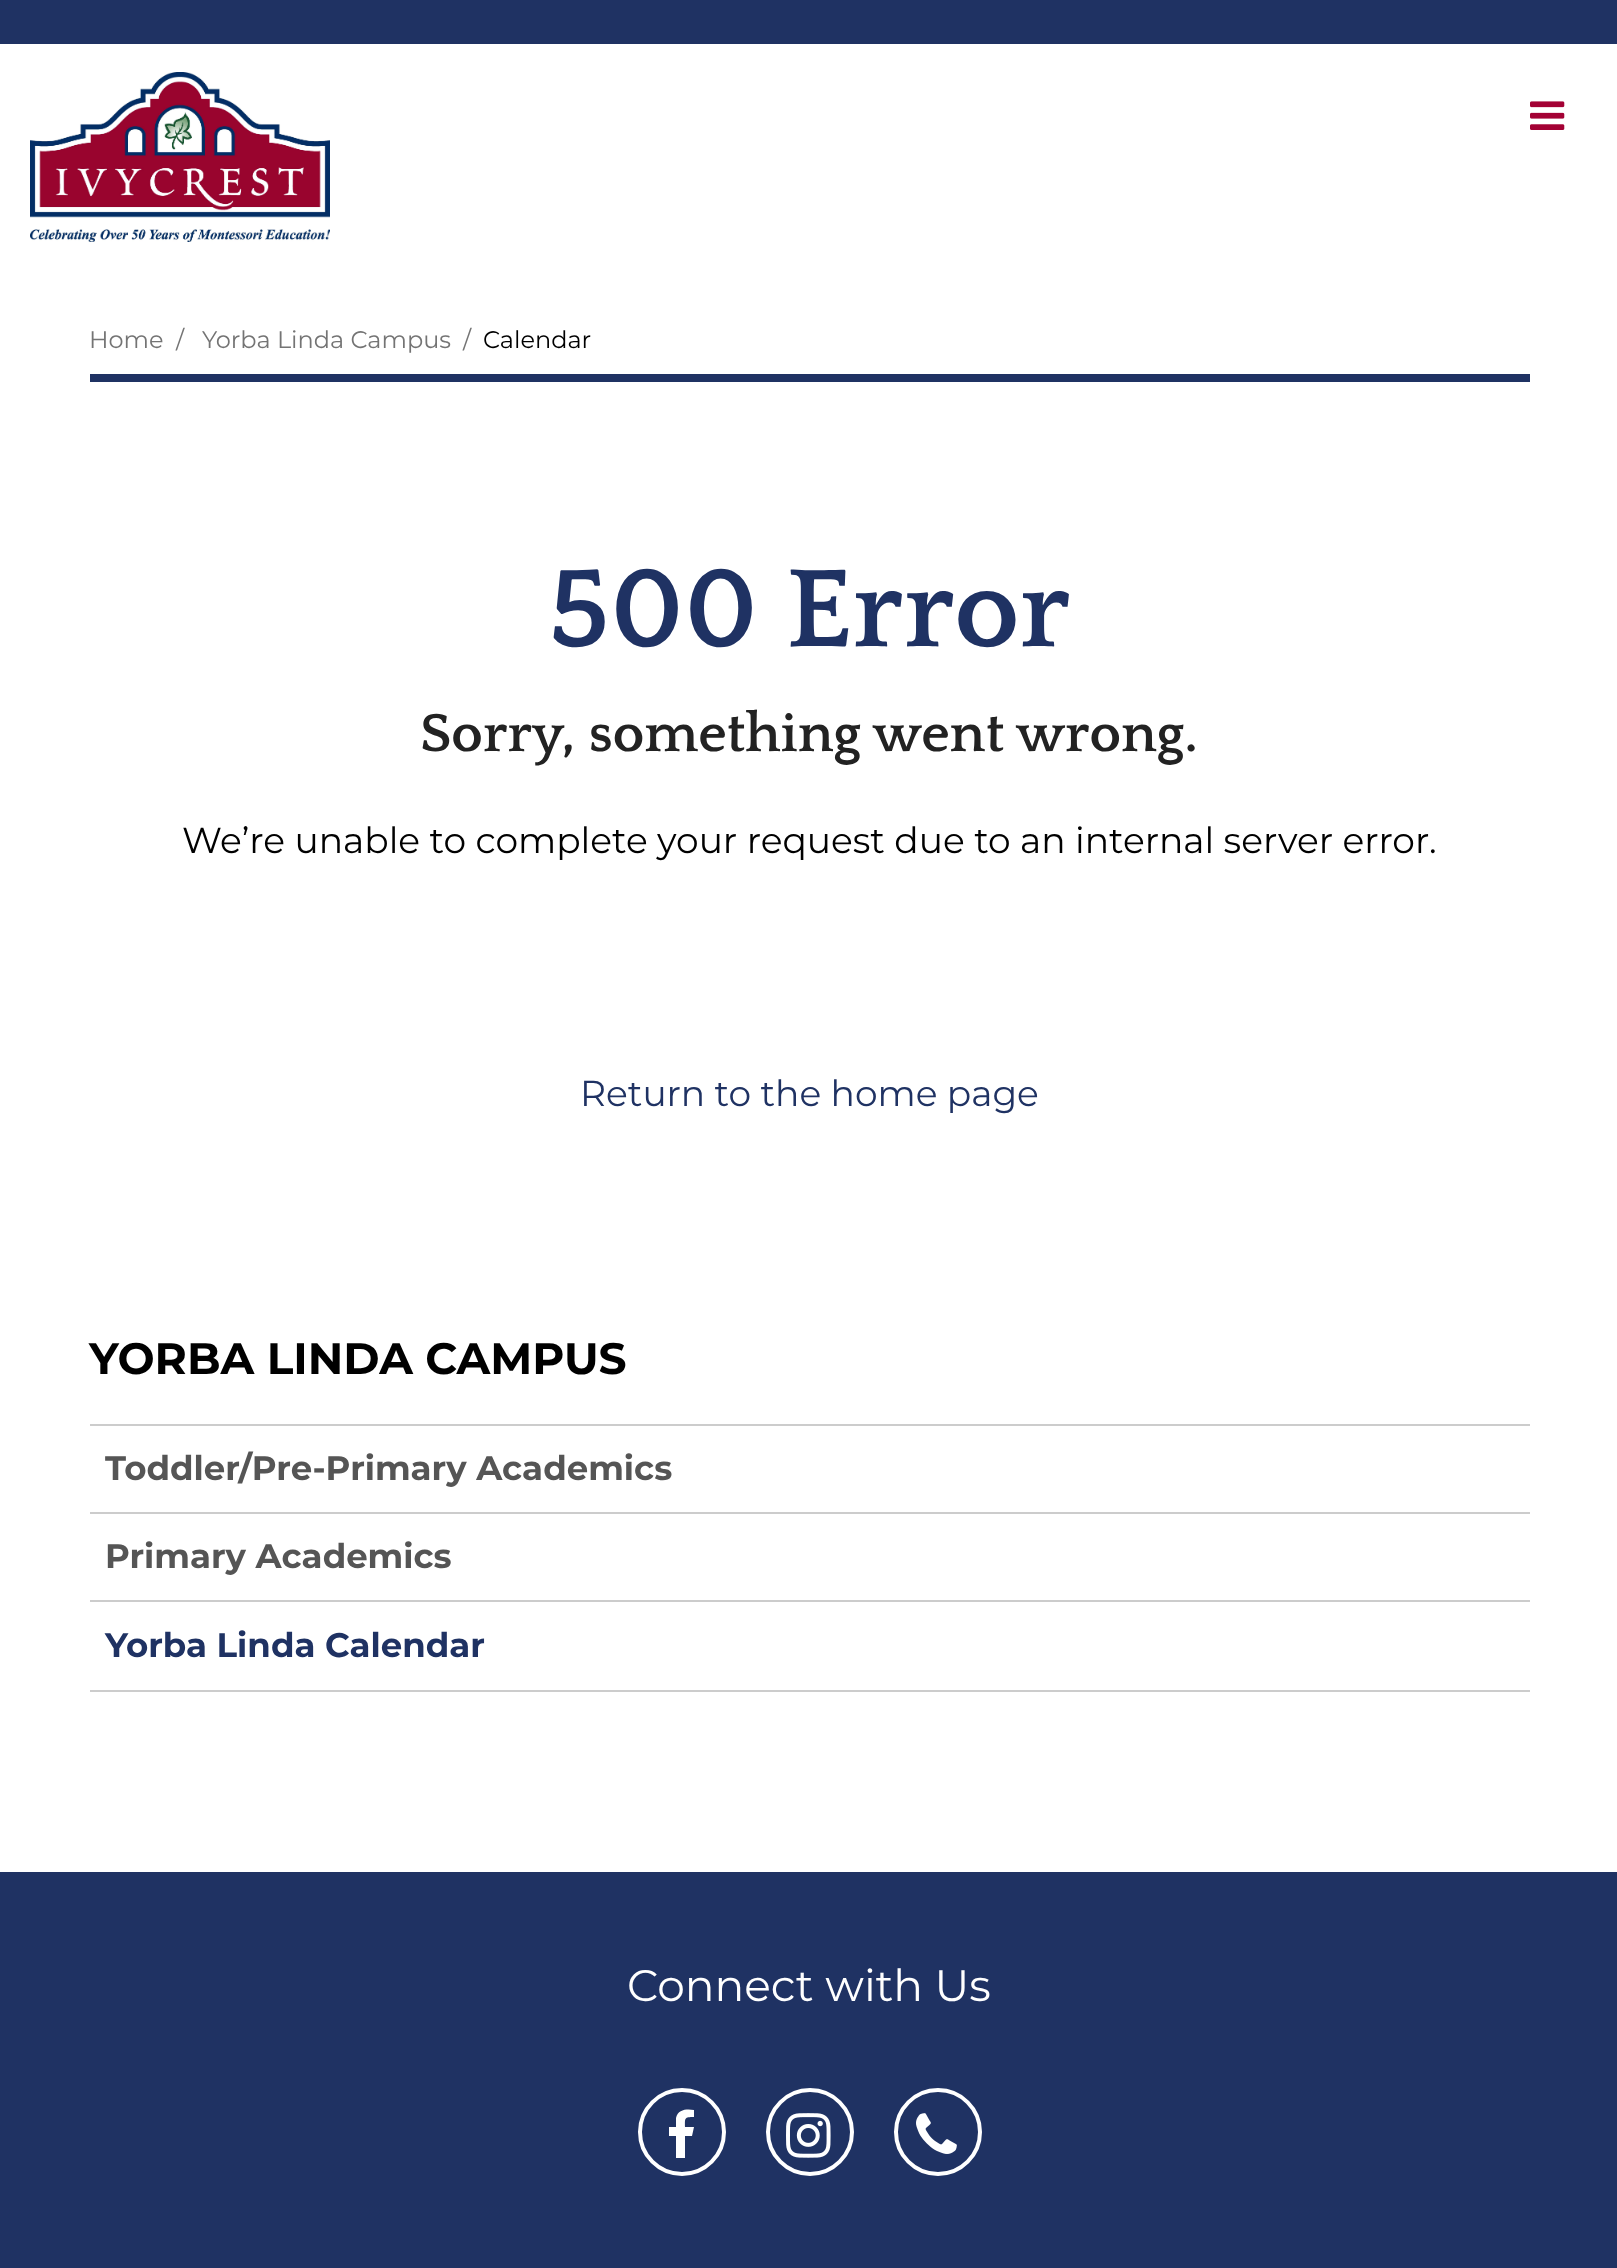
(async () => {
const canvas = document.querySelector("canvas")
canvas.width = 1617
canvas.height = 2268
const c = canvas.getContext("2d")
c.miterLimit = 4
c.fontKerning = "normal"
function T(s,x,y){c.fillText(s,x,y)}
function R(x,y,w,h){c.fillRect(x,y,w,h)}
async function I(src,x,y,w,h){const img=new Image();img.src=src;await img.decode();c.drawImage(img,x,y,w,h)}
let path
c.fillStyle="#fff"
R(0,0,1617,2268)
c.fillStyle="#1f3263"
R(0,0,1617,44)
await I("1.png",30,72,300,170)
await I("2.png",1530,101,35,29)
R(90,374,1440,8)
c.font="24px Montserrat"
c.fillStyle="#747474"
T("Home",89,348)
T("/",176,348)
T("Yorba Linda Campus",202,348)
T("/",463,348)
c.fillStyle="#000"
T("Calendar",483,348)
c.font="bold 116px Quattrocento"
c.fillStyle="#1f3263"
T("500 Error",548,646)
c.font="bold 56px Quattrocento"
c.fillStyle="#222"
T("Sorry, something went wrong.",420,751)
c.font="36px Montserrat"
c.fillStyle="#000"
T("We’re unable to complete your request due to an internal server error.",182,853)
c.fillStyle="#1f3263"
T("Return to the home page",580,1106)
c.font="bold 44px Montserrat"
c.fillStyle="#000"
T("YORBA LINDA CAMPUS",89,1374)
c.fillStyle="#ccc"
R(90,1424,1440,2)
R(90,1512,1440,2)
c.font="bold 34px Montserrat"
c.fillStyle="#555"
T("Toddler/Pre-Primary Academics",105,1480)
c.fillStyle="#ccc"
R(90,1600,1440,2)
c.fillStyle="#555"
T("Primary Academics",105,1568)
c.fillStyle="#ccc"
R(90,1690,1440,2)
c.fillStyle="#1f3263"
T("Yorba Linda Calendar",105,1657)
R(0,1872,1617,396)
c.font="44px Montserrat"
c.fillStyle="#fff"
T("Connect with Us",627,2001)
c.beginPath()
c.arc(682,2132,42,0,7)
c.strokeStyle="#fff"
c.lineWidth=4
c.stroke()
path = new Path2D("M694 2110v7c-10 0-9 1-9 10h9l-2 9h-7v22h-9v-22h-7v-9h7v-9c2-9 11-9 18-8z")
c.fill(path)
c.beginPath()
c.arc(810,2132,42,0,7)
c.stroke()
await I("3.png",786,2113,45,45)
c.beginPath()
c.arc(938,2132,42,0,7)
c.stroke()
await I("4.png",916,2113,41,41)
})()
